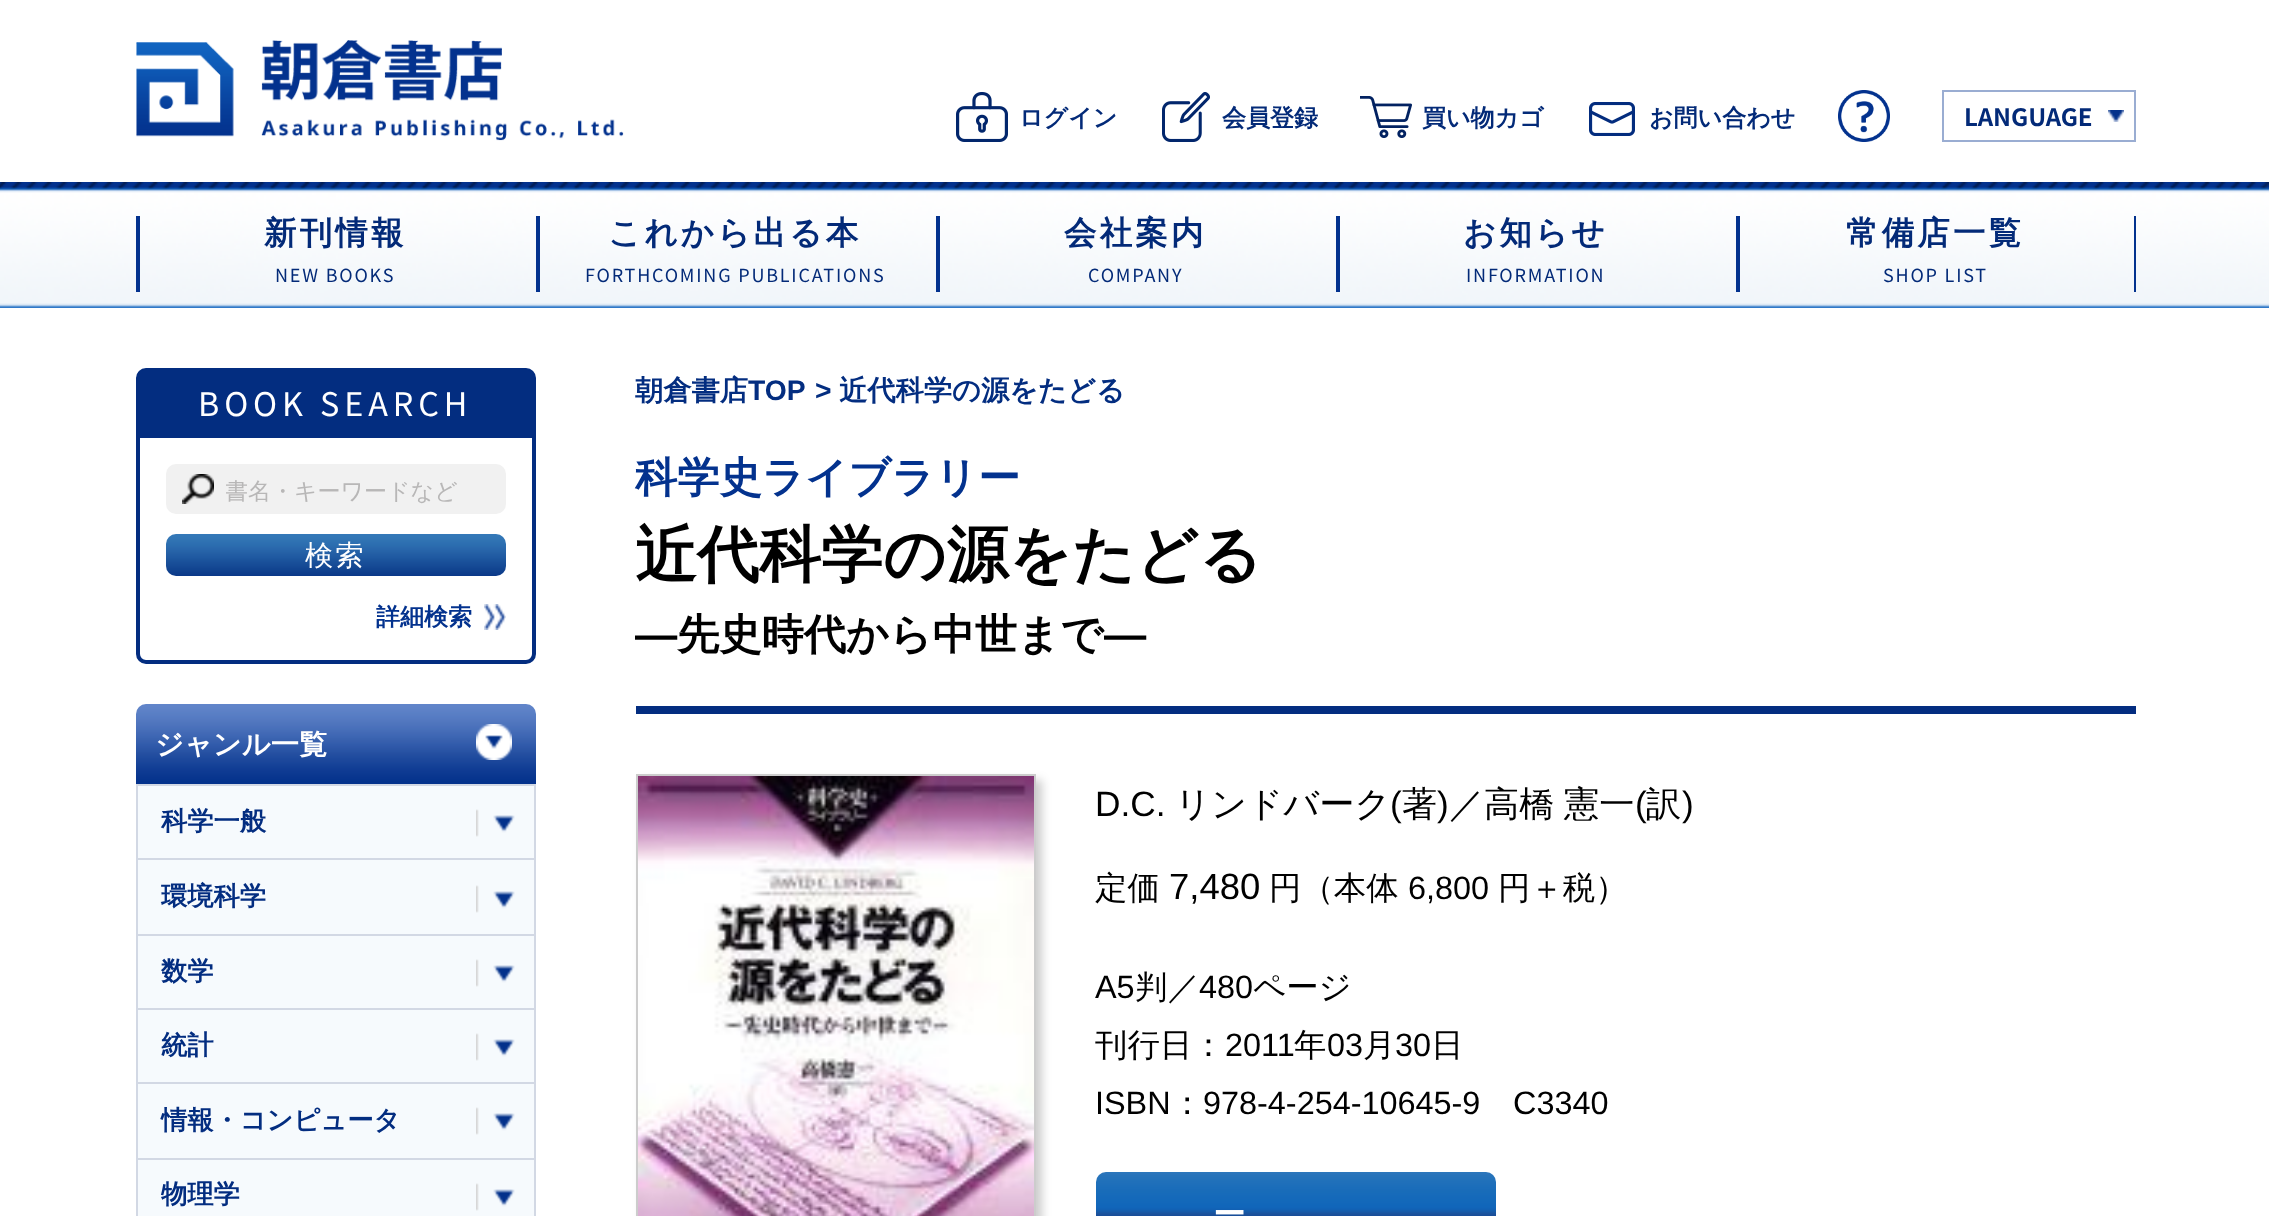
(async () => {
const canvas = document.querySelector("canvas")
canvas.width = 2269
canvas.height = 1216
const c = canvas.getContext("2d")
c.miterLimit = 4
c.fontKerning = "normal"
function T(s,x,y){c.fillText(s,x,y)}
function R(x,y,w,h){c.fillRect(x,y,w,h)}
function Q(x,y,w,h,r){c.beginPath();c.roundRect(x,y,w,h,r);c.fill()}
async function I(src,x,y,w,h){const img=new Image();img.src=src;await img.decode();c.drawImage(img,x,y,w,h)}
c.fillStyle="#fff"
R(0,0,2269,1216)
await I("1.png",136,40,488,101)
await I("2.png",956,92,52,50)
c.font="bold 24px WenQuanYi Zen Hei"
c.fillStyle="#032a78"
T("ログイン",1019,126)
await I("3.png",1162,92,48,50)
T("会員登録",1222,126)
await I("4.png",1360,96,52,42)
T("買い物カゴ",1422,126)
await I("5.png",1589,102,46,34)
T("お問い合わせ",1649,126)
await I("6.png",1838,90,52,52)
await I("7.png",2108,110,16,12)
c.strokeStyle="#9aadd2"
c.lineWidth=2
c.strokeRect(1943,91,192,50)
c.font="bold 24px Noto Sans JP"
T("LANGUAGE",1964,126)
await I("8.png",0,182,2269,126)
c.fillStyle="#03328e"
R(136,216,4,76)
c.letterSpacing="3.25px"
c.font="bold 32.4px WenQuanYi Zen Hei"
c.fillStyle="#032a78"
T("新刊情報",264,244)
c.letterSpacing="1.8px"
c.font="18px Noto Sans JP"
T("NEW BOOKS",275,282)
c.fillStyle="#03328e"
R(536,216,4,76)
c.letterSpacing="3.25px"
c.font="bold 32.4px WenQuanYi Zen Hei"
c.fillStyle="#032a78"
T("これから出る本",608,244)
c.letterSpacing="1.8px"
c.font="18px Noto Sans JP"
T("FORTHCOMING PUBLICATIONS",585,282)
c.fillStyle="#03328e"
R(936,216,4,76)
c.letterSpacing="3.25px"
c.font="bold 32.4px WenQuanYi Zen Hei"
c.fillStyle="#032a78"
T("会社案内",1064,244)
c.letterSpacing="1.8px"
c.font="18px Noto Sans JP"
T("COMPANY",1088,282)
c.fillStyle="#03328e"
R(1336,216,4,76)
c.letterSpacing="3.25px"
c.font="bold 32.4px WenQuanYi Zen Hei"
c.fillStyle="#032a78"
T("お知らせ",1463,244)
c.letterSpacing="1.8px"
c.font="18px Noto Sans JP"
T("INFORMATION",1466,282)
c.fillStyle="#03328e"
R(1736,216,4,76)
R(2134,216,2,76)
c.letterSpacing="3.25px"
c.font="bold 32.4px WenQuanYi Zen Hei"
c.fillStyle="#032a78"
T("常備店一覧",1846,244)
c.letterSpacing="1.8px"
c.font="18px Noto Sans JP"
T("SHOP LIST",1883,282)
c.beginPath()
c.roundRect(138,370,396,292,8)
c.strokeStyle="#032d80"
c.lineWidth=4
c.stroke()
c.fillStyle="#032d80"
c.beginPath()
c.roundRect(138,370,396,68,[6,6,0,0])
c.fill()
c.letterSpacing="4.9px"
c.font="32.4px Noto Sans JP"
c.fillStyle="#fff"
T("BOOK SEARCH",198,416)
c.fillStyle="#f1f1f1"
Q(166,464,340,50,10)
await I("9.png",182,474,32,30)
c.save()
c.beginPath()
c.rect(226,476,250,30)
c.clip()
c.letterSpacing="0px"
c.font="500 23px WenQuanYi Zen Hei"
c.fillStyle="#b8b7b7"
T("書名・キーワードなど",225,499)
c.restore()
await I("10.png",166,534,340,42)
c.letterSpacing="2px"
c.font="500 28.25px WenQuanYi Zen Hei"
c.fillStyle="#fff"
T("検索",305,565)
c.letterSpacing="0px"
c.font="bold 24px WenQuanYi Zen Hei"
c.fillStyle="#03328e"
T("詳細検索",376,625)
await I("11.png",484,604,22,26)
c.font="bold 28.25px WenQuanYi Zen Hei"
c.fillStyle="#032d80"
T("朝倉書店",635,400)
c.font="bold 28.25px Liberation Sans"
T("TOP",748,400)
T(">",815,400)
c.font="bold 28.25px WenQuanYi Zen Hei"
T("近代科学の源をたどる",839,400)
R(636,706,1500,8)
c.font="bold 42.25px WenQuanYi Zen Hei"
c.fillStyle="#03328e"
T("科学史ライブラリー",635,492)
c.font="bold 62px WenQuanYi Zen Hei"
c.fillStyle="#000"
T("近代科学の源をたどる",635,576)
c.font="bold 42.25px Liberation Sans"
T("―",635,649)
c.font="bold 42.25px WenQuanYi Zen Hei"
T("先史時代から中世まで",677,649)
c.font="bold 42.25px Liberation Sans"
T("―",1104,649)
c.fillStyle="#00000033"
c.filter="blur(5px)"
c.beginPath()
c.rect(642,780,400,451)
c.fill()
c.filter="none"
c.strokeStyle="#ccc"
c.lineWidth=2
c.strokeRect(637,775,398,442)
await I("12.png",638,776,396,440)
c.font="35.25px Liberation Sans"
c.fillStyle="#000"
T("D.C.",1095,816)
c.font="500 35.25px WenQuanYi Zen Hei"
T("リンドバーク",1175,816)
c.font="35.25px Liberation Sans"
T("(",1390,816)
c.font="500 35.25px WenQuanYi Zen Hei"
T("著",1402,816)
c.font="35.25px Liberation Sans"
T(")",1437,816)
c.font="500 35.25px WenQuanYi Zen Hei"
T("／",1449,816)
c.wordSpacing="-1px"
T("高橋 憲一",1484,816)
c.wordSpacing="0px"
c.font="35.25px Liberation Sans"
T("(",1635,816)
c.font="500 35.25px WenQuanYi Zen Hei"
T("訳",1646,816)
c.font="35.25px Liberation Sans"
T(")",1682,816)
c.font="500 32.4px WenQuanYi Zen Hei"
T("定価",1095,899)
c.font="36.5px Liberation Sans"
T("7,480",1169,899)
c.font="500 32.4px WenQuanYi Zen Hei"
T("円（本体",1269,899)
c.font="32.4px Liberation Sans"
T("6,800",1408,899)
c.font="500 32.4px WenQuanYi Zen Hei"
T("円＋税）",1498,899)
c.font="32.4px Liberation Sans"
T("A5",1095,998)
c.font="500 32.4px WenQuanYi Zen Hei"
T("判／",1135,998)
c.font="32.4px Liberation Sans"
T("480",1199,998)
c.font="500 32.4px WenQuanYi Zen Hei"
T("ページ",1253,998)
T("刊行日：",1095,1056)
c.font="32.4px Liberation Sans"
T("2011",1225,1056)
c.font="500 32.4px WenQuanYi Zen Hei"
T("年",1294,1056)
c.font="32.4px Liberation Sans"
T("03",1327,1056)
c.font="500 32.4px WenQuanYi Zen Hei"
T("月",1363,1056)
c.font="32.4px Liberation Sans"
T("30",1395,1056)
c.font="500 32.4px WenQuanYi Zen Hei"
T("日",1431,1056)
c.font="32.4px Liberation Sans"
T("ISBN",1095,1114)
c.font="500 32.4px WenQuanYi Zen Hei"
T("：",1171,1114)
c.font="32.4px Liberation Sans"
T("978-4-254-10645-9",1203,1114)
T("C3340",1513,1114)
await I("13.png",1096,1172,400,44)
c.font="bold 32.4px WenQuanYi Zen Hei"
c.fillStyle="#fff"
T("ー",1213,1225)
await I("14.png",136,704,400,80)
await I("15.png",476,724,36,36)
c.font="bold 28.25px WenQuanYi Zen Hei"
T("ジャンル一覧",155,754)
c.fillStyle="#f6fafd"
c.beginPath()
c.rect(137,785,398,74)
c.fill()
c.strokeStyle="#d2d8e4"
c.stroke()
c.font="bold 26.25px WenQuanYi Zen Hei"
c.fillStyle="#032d80"
T("科学一般",161,830)
await I("16.png",476,809,39,28)
c.fillStyle="#f6fafd"
c.beginPath()
c.rect(137,859,398,76)
c.fill()
c.stroke()
c.fillStyle="#032d80"
T("環境科学",161,905)
await I("16.png",476,885,39,28)
c.fillStyle="#f6fafd"
c.beginPath()
c.rect(137,935,398,74)
c.fill()
c.stroke()
c.fillStyle="#032d80"
T("数学",161,980)
await I("16.png",476,959,39,28)
c.fillStyle="#f6fafd"
c.beginPath()
c.rect(137,1009,398,74)
c.fill()
c.stroke()
c.fillStyle="#032d80"
T("統計",161,1054)
await I("16.png",476,1033,39,28)
c.fillStyle="#f6fafd"
c.beginPath()
c.rect(137,1083,398,76)
c.fill()
c.stroke()
c.fillStyle="#032d80"
T("情報・コンピュータ",161,1129)
await I("16.png",476,1107,39,28)
c.fillStyle="#f6fafd"
c.beginPath()
c.rect(137,1159,398,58)
c.fill()
c.stroke()
c.fillStyle="#032d80"
T("物理学",161,1203)
await I("16.png",476,1183,39,28)
})()
